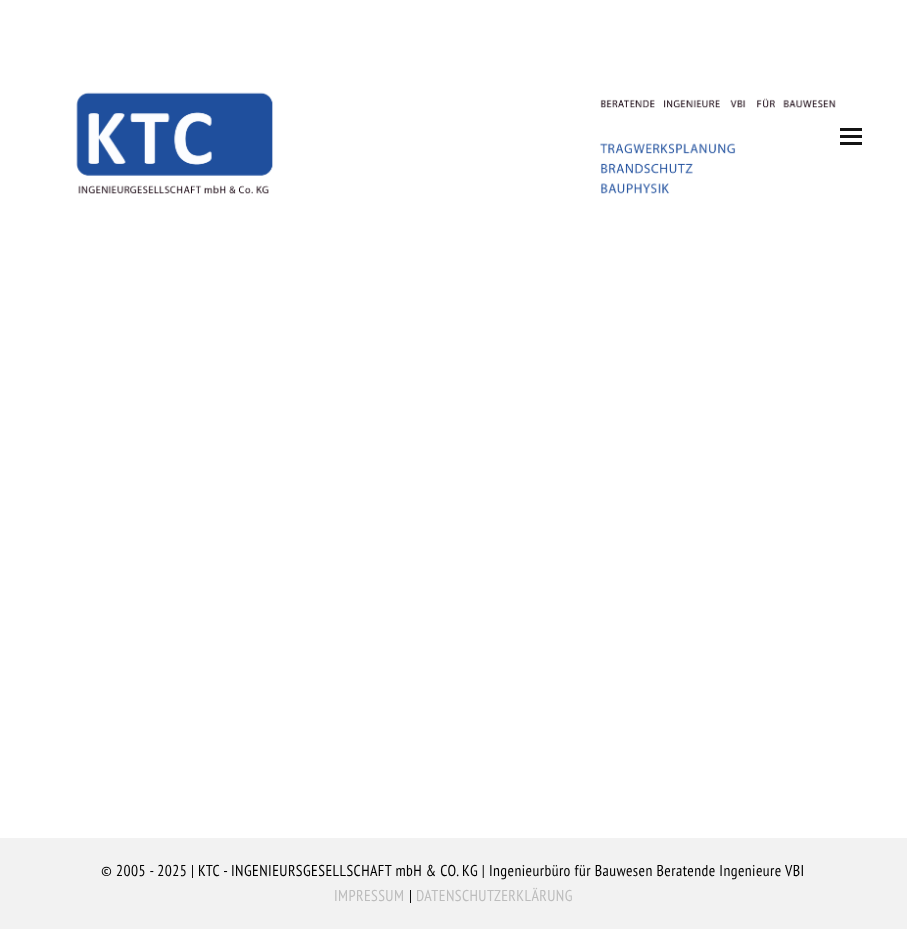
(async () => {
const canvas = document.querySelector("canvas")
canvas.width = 907
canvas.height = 929
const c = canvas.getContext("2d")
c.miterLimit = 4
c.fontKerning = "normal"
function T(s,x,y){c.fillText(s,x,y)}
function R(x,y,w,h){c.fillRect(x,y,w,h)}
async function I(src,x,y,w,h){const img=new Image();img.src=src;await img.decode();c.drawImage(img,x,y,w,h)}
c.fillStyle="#fff"
R(0,0,907,929)
await I("1.png",76,92,760,102)
c.fillStyle="#141414"
R(840,135,22,3)
R(840,128,22,3)
R(840,142,22,3)
c.fillStyle="#f2f2f2"
R(0,838,907,91)
c.letterSpacing="0.42px"
c.font="15.7px PT Sans Narrow"
c.fillStyle="#000"
T("© 2005 - 2025 | KTC - INGENIEURSGESELLSCHAFT mbH & CO. KG | Ingenieurbüro für Bauwesen Beratende Ingenieure VBI",101,876)
c.fillStyle="#bdbdbd"
T("IMPRESSUM",334,901)
c.fillStyle="#000"
T("|",409,901)
c.fillStyle="#bdbdbd"
T("DATENSCHUTZERKLÄRUNG",416,901)
})()
